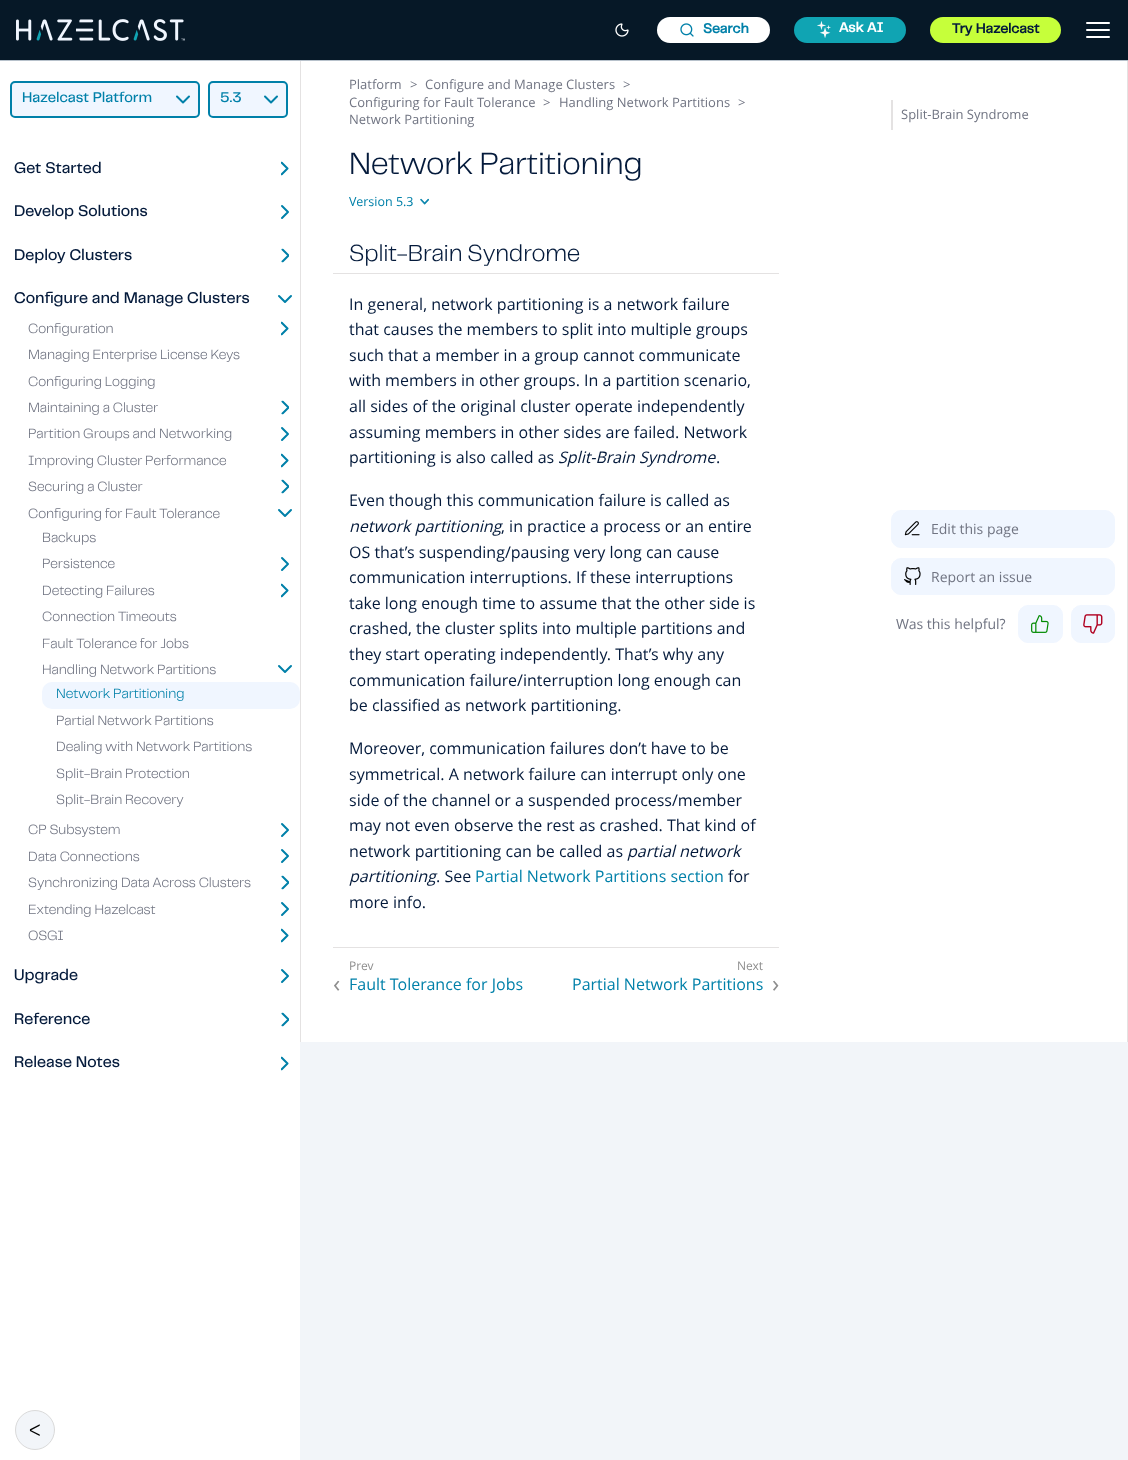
(async () => {
const canvas = document.querySelector("canvas")
canvas.width = 1128
canvas.height = 1460
const c = canvas.getContext("2d")
c.miterLimit = 4
c.fontKerning = "normal"
function T(s,x,y){c.fillText(s,x,y)}
function R(x,y,w,h){c.fillRect(x,y,w,h)}
function Q(x,y,w,h,r){c.beginPath();c.roundRect(x,y,w,h,r);c.fill()}
async function I(src,x,y,w,h){const img=new Image();img.src=src;await img.decode();c.drawImage(img,x,y,w,h)}
let gradient, path
c.fillStyle="#f2f5f9"
R(0,0,1128,1460)
c.fillStyle="#061827"
R(0,0,1128,60)
c.fillStyle="#b7c1cb"
R(0,60,1128,1)
await I("1.png",16,19,169,22)
await I("2.png",615,23,14,14)
gradient = c.createLinearGradient(701,113,840,-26)
gradient.addColorStop(.5,"#fff")
gradient.addColorStop(.75,"#fff")
gradient.addColorStop(1,"#10a4b3")
c.fillStyle = gradient
Q(657,17,113,26,13)
await I("3.png",680,23,14,14)
c.font="bold 14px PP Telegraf"
c.fillStyle="#0080a9"
T("Search",703,33)
c.fillStyle="#10a4b3"
Q(794,17,112,26,13)
await I("4.png",817,21,14,17)
c.fillStyle="#fff"
T("Ask AI",839,32)
c.fillStyle="#c6ff3a"
Q(930,17,131,26,13)
c.fillStyle="#041a3b"
T("Try Hazelcast",952,33)
c.fillStyle="#fff"
Q(1086,22,24,2,1)
Q(1086,29,24,2,1)
Q(1086,36,24,2,1)
R(0,61,300,1399)
c.fillStyle="#f0f6ff"
c.beginPath()
c.roundRect(11,82,188,35,4)
c.fill()
c.strokeStyle="#0080a9"
c.lineWidth=2
c.stroke()
c.font="500 14.75px PP Telegraf"
c.fillStyle="#0080a9"
T("Hazelcast Platform",22,102)
path = new Path2D("M177 96.5l6 6l6-6")
c.lineCap="round"
c.lineJoin="round"
c.stroke(path)
c.fillStyle="#f0f6ff"
c.beginPath()
c.roundRect(209,82,78,35,4)
c.fill()
c.lineJoin="miter"
c.stroke()
c.fillStyle="#0080a9"
T("5.3",220,102)
path = new Path2D("M265 96.5l6 6l6-6")
c.lineJoin="round"
c.stroke(path)
c.font="500 16px PP Telegraf"
c.fillStyle="#041a3b"
T("Get Started",14,173)
c.save()
path = new Path2D("M281 175.5v-14h8v14z")
c.clip(path)
path = new Path2D("M281.5 174.5l6-6l-6-6")
c.stroke(path)
c.restore()
T("Develop Solutions",14,216)
path = new Path2D("M282 218l6-6l-6-6")
c.stroke(path)
T("Deploy Clusters",14,260)
c.save()
path = new Path2D("M281 262.5v-14h8v14z")
c.clip(path)
path = new Path2D("M282.5 261.5l6-6l-6-6")
c.stroke(path)
c.restore()
T("Configure and Manage Clusters",14,303)
path = new Path2D("M279 296l6 6l6-6")
c.stroke(path)
c.font="300 14px PP Telegraf"
c.fillStyle="#707482"
T("Configuration",28,333)
c.save()
path = new Path2D("M281 335.5v-14h8v14z")
c.clip(path)
path = new Path2D("M281.5 334.5l6-6l-6-6")
c.stroke(path)
c.restore()
T("Managing Enterprise License Keys",28,359)
T("Configuring Logging",28,386)
T("Maintaining a Cluster",28,412)
c.save()
path = new Path2D("M281 414.5v-14h8v14z")
c.clip(path)
path = new Path2D("M282.5 413.5l6-6l-6-6")
c.stroke(path)
c.restore()
T("Partition Groups and Networking",28,438)
path = new Path2D("M282 440l6-6l-6-6")
c.stroke(path)
T("Improving Cluster Performance",28,465)
c.save()
path = new Path2D("M281 467.5v-14h8v14z")
c.clip(path)
path = new Path2D("M281.5 466.5l6-6l-6-6")
c.stroke(path)
c.restore()
T("Securing a Cluster",28,491)
c.save()
path = new Path2D("M281 493.5v-14h8v14z")
c.clip(path)
path = new Path2D("M282.5 492.5l6-6l-6-6")
c.stroke(path)
c.restore()
T("Configuring for Fault Tolerance",28,518)
path = new Path2D("M279 510l6 6l6-6")
c.stroke(path)
T("Backups",42,542)
T("Persistence",42,568)
path = new Path2D("M282 570l6-6l-6-6")
c.stroke(path)
T("Detecting Failures",42,595)
c.save()
path = new Path2D("M281 597.5v-14h8v14z")
c.clip(path)
path = new Path2D("M281.5 596.5l6-6l-6-6")
c.stroke(path)
c.restore()
T("Connection Timeouts",42,621)
T("Fault Tolerance for Jobs",42,648)
T("Handling Network Partitions",42,674)
path = new Path2D("M279 666l6 6l6-6")
c.stroke(path)
c.fillStyle="#f0f6ff"
Q(42,682,258,27,10)
c.fillStyle="#0080a9"
T("Network Partitioning",56,698)
c.fillStyle="#707482"
T("Partial Network Partitions",56,725)
T("Dealing with Network Partitions",56,751)
T("Split-Brain Protection",56,778)
T("Split-Brain Recovery",56,804)
T("CP Subsystem",28,834)
path = new Path2D("M282 836l6-6l-6-6")
c.stroke(path)
T("Data Connections",28,861)
path = new Path2D("M282 862l6-6l-6-6")
c.stroke(path)
T("Synchronizing Data Across Clusters",28,887)
c.save()
path = new Path2D("M281 889.5v-14h8v14z")
c.clip(path)
path = new Path2D("M282.5 888.5l6-6l-6-6")
c.stroke(path)
c.restore()
T("Extending Hazelcast",28,914)
path = new Path2D("M282 915l6-6l-6-6")
c.stroke(path)
T("OSGI",28,940)
c.save()
path = new Path2D("M281 942.5v-14h8v14z")
c.clip(path)
path = new Path2D("M281.5 941.5l6-6l-6-6")
c.stroke(path)
c.restore()
c.font="500 16px PP Telegraf"
c.fillStyle="#041a3b"
T("Upgrade",14,980)
path = new Path2D("M282 982l6-6l-6-6")
c.stroke(path)
T("Reference",14,1024)
c.save()
path = new Path2D("M281 1026.5v-14h8v14z")
c.clip(path)
path = new Path2D("M282.5 1025.5l6-6l-6-6")
c.stroke(path)
c.restore()
T("Release Notes",14,1067)
c.save()
path = new Path2D("M281 1070.5v-14h8v14z")
c.clip(path)
path = new Path2D("M281.5 1069.5l6-6l-6-6")
c.stroke(path)
c.restore()
c.fillStyle="#fff"
R(301,61,826,981)
c.fillStyle="#e4e2e2"
R(1127,61,1,981)
R(300,61,1,981)
c.font="13px Open Sans"
c.fillStyle="#707482"
T("Platform",349,89)
T(">",410,89)
T("Configure and Manage Clusters",425,89)
T(">",623,89)
T("Configuring for Fault Tolerance",349,107)
T(">",543,107)
T("Handling Network Partitions",559,107)
T(">",738,107)
T("Network Partitioning",349,124)
c.font="300 32px PP Telegraf"
c.fillStyle="#041a3b"
T("Network Partitioning",349,174)
await I("5.png",420,198,9,7)
c.font="12.5px Open Sans"
c.fillStyle="#0080a9"
T("Version 5.3",349,206)
c.fillStyle="#e4e2e2"
R(333,273,446,1)
c.font="300 24px PP Telegraf"
c.fillStyle="#041a3b"
T("Split-Brain Syndrome",349,261)
c.font="16px Open Sans"
T("In general, network partitioning is a network failure",349,310)
T("that causes the members to split into multiple groups",349,335)
T("such that a member in a group cannot communicate",349,361)
T("with members in other groups. In a partition scenario,",349,386)
T("all sides of the original cluster operate independently",349,412)
T("assuming members in other sides are failed. Network",349,438)
T("partitioning is also called as",349,463)
c.font="italic 16px Open Sans"
T("Split-Brain Syndrome",558,463)
c.font="16px Open Sans"
T(".",716,463)
T("Even though this communication failure is called as",349,506)
c.font="italic 16px Open Sans"
T("network partitioning",349,532)
c.font="16px Open Sans"
T(", in practice a process or an entire",501,532)
T("OS that’s suspending/pausing very long can cause",349,558)
T("communication interruptions. If these interruptions",349,583)
T("take long enough time to assume that the other side is",349,609)
T("crashed, the cluster splits into multiple partitions and",349,634)
T("they start operating independently. That’s why any",349,660)
T("communication failure/interruption long enough can",349,686)
T("be classified as network partitioning.",349,711)
T("Moreover, communication failures don’t have to be",349,754)
T("symmetrical. A network failure can interrupt only one",349,780)
T("side of the channel or a suspended process/member",349,806)
T("may not even observe the rest as crashed. That kind of",349,831)
T("network partitioning can be called as",349,857)
c.font="italic 16px Open Sans"
T("partial network",627,857)
T("partitioning",349,882)
c.font="16px Open Sans"
T(". See",436,882)
c.fillStyle="#0080a9"
T("Partial Network Partitions section",475,882)
c.fillStyle="#041a3b"
T("for",728,882)
T("more info.",349,908)
c.fillStyle="#e4e2e2"
R(333,947,446,1)
c.font="12px Open Sans"
c.fillStyle="#8e8e8e"
T("Prev",349,970)
c.font="24px Open Sans"
T("‹",333,992)
c.font="16px Open Sans"
c.fillStyle="#0080a9"
T("Fault Tolerance for Jobs",349,990)
c.font="12px Open Sans"
c.fillStyle="#8e8e8e"
T("Next",737,970)
c.font="16px Open Sans"
c.fillStyle="#0080a9"
T("Partial Network Partitions",572,990)
c.font="24px Open Sans"
c.fillStyle="#8e8e8e"
T("›",772,992)
c.fillStyle="#e4e2e2"
R(891,100,2,30)
c.font="13px Open Sans"
c.fillStyle="#707482"
T("Split-Brain Syndrome",901,119)
c.fillStyle="#f0f6ff"
c.beginPath()
c.roundRect(891.5,510.5,223,37,9.5)
c.fill()
c.strokeStyle="#f0f6ff"
c.lineWidth=1
c.lineJoin="miter"
c.stroke()
await I("6.png",904,521,16,15)
c.font="14px Open Sans"
c.fillStyle="#707482"
T("Edit this page",931,534)
c.fillStyle="#f0f6ff"
c.beginPath()
c.roundRect(891.5,558.5,223,36,9.5)
c.fill()
c.stroke()
await I("7.png",904,567,17,18)
c.fillStyle="#707482"
T("Report an issue",931,582)
T("Was this helpful?",896,629)
c.fillStyle="#f0f6ff"
c.beginPath()
c.roundRect(1018.5,605.5,44,37,9.5)
c.fill()
c.stroke()
await I("8.png",1031,615,18,18)
c.beginPath()
c.roundRect(1071.5,605.5,43,37,9.5)
c.fill()
c.stroke()
await I("9.png",1083,614,20,20)
c.fillStyle="#f2f5f9"
c.beginPath()
c.arc(35,1430,19.5,0,7)
c.fill()
c.strokeStyle="#dadada"
c.stroke()
c.font="16px DejaVu Sans"
c.fillStyle="#000"
T("ᐸ",29,1436)
})()
